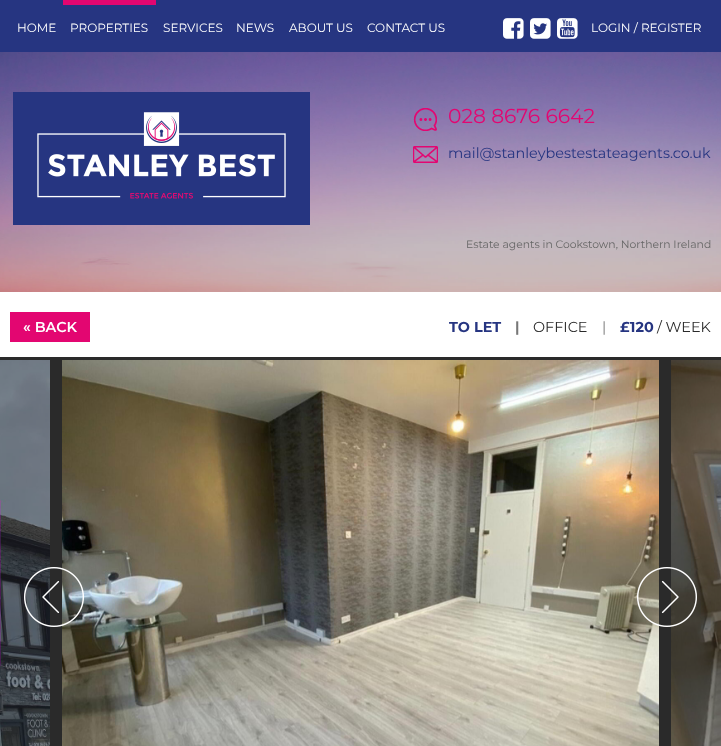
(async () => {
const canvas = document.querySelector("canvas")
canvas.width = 721
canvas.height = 746
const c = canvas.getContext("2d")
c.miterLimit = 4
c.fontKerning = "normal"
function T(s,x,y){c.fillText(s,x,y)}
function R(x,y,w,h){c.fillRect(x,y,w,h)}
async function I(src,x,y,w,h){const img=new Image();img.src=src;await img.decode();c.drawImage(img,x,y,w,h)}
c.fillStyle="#fff"
R(0,0,721,746)
c.fillStyle="#263581"
R(0,0,721,52)
c.font="12px Montserrat"
c.fillStyle="#fff"
T("HOME",17,32)
c.fillStyle="#e30671"
R(63,0,93,5)
c.fillStyle="#fff"
T("PROPERTIES",70,32)
T("SERVICES",163,32)
T("NEWS",236,32)
T("ABOUT US",289,32)
T("CONTACT US",367,32)
await I("1.png",503,18,21,21)
await I("2.png",530,18,21,21)
await I("3.png",557,18,21,21)
T("LOGIN / REGISTER",591,32)
await I("4.png",0,52,721,240)
await I("5.png",13,92,297,133)
await I("6.png",413,108,24,23)
c.font="20.25px Montserrat"
c.fillStyle="#e30671"
T("028 8676 6642",448,123)
await I("7.png",413,146,25,17)
c.font="14.4px Montserrat"
c.fillStyle="#263581"
T("mail@stanleybestestateagents.co.uk",448,158)
c.font="10.8px Montserrat"
c.fillStyle="#666"
T("Estate agents in Cookstown, Northern Ireland",466,248)
c.fillStyle="#e30671"
R(10,312,80,30)
c.font="600 14.4px Montserrat"
c.fillStyle="#fff"
T("« BACK",23,332)
c.font="bold 14.4px Montserrat"
c.fillStyle="#263581"
T("TO LET",449,332)
c.fillStyle="#777"
T("|",515,332)
c.font="14.4px Montserrat"
c.fillStyle="#2a2a2a"
T("OFFICE",533,332)
c.fillStyle="#777"
T("|",602,332)
c.font="bold 14.4px Montserrat"
c.fillStyle="#263581"
T("£120",620,332)
c.font="14.4px Montserrat"
c.fillStyle="#2a2a2a"
T("/ WEEK",657,332)
R(0,357,721,389)
await I("8.png",0,360,50,386)
await I("9.png",62,360,597,386)
await I("10.png",671,360,50,386)
await I("11.png",24,567,60,60)
await I("12.png",637,567,60,60)
})()
